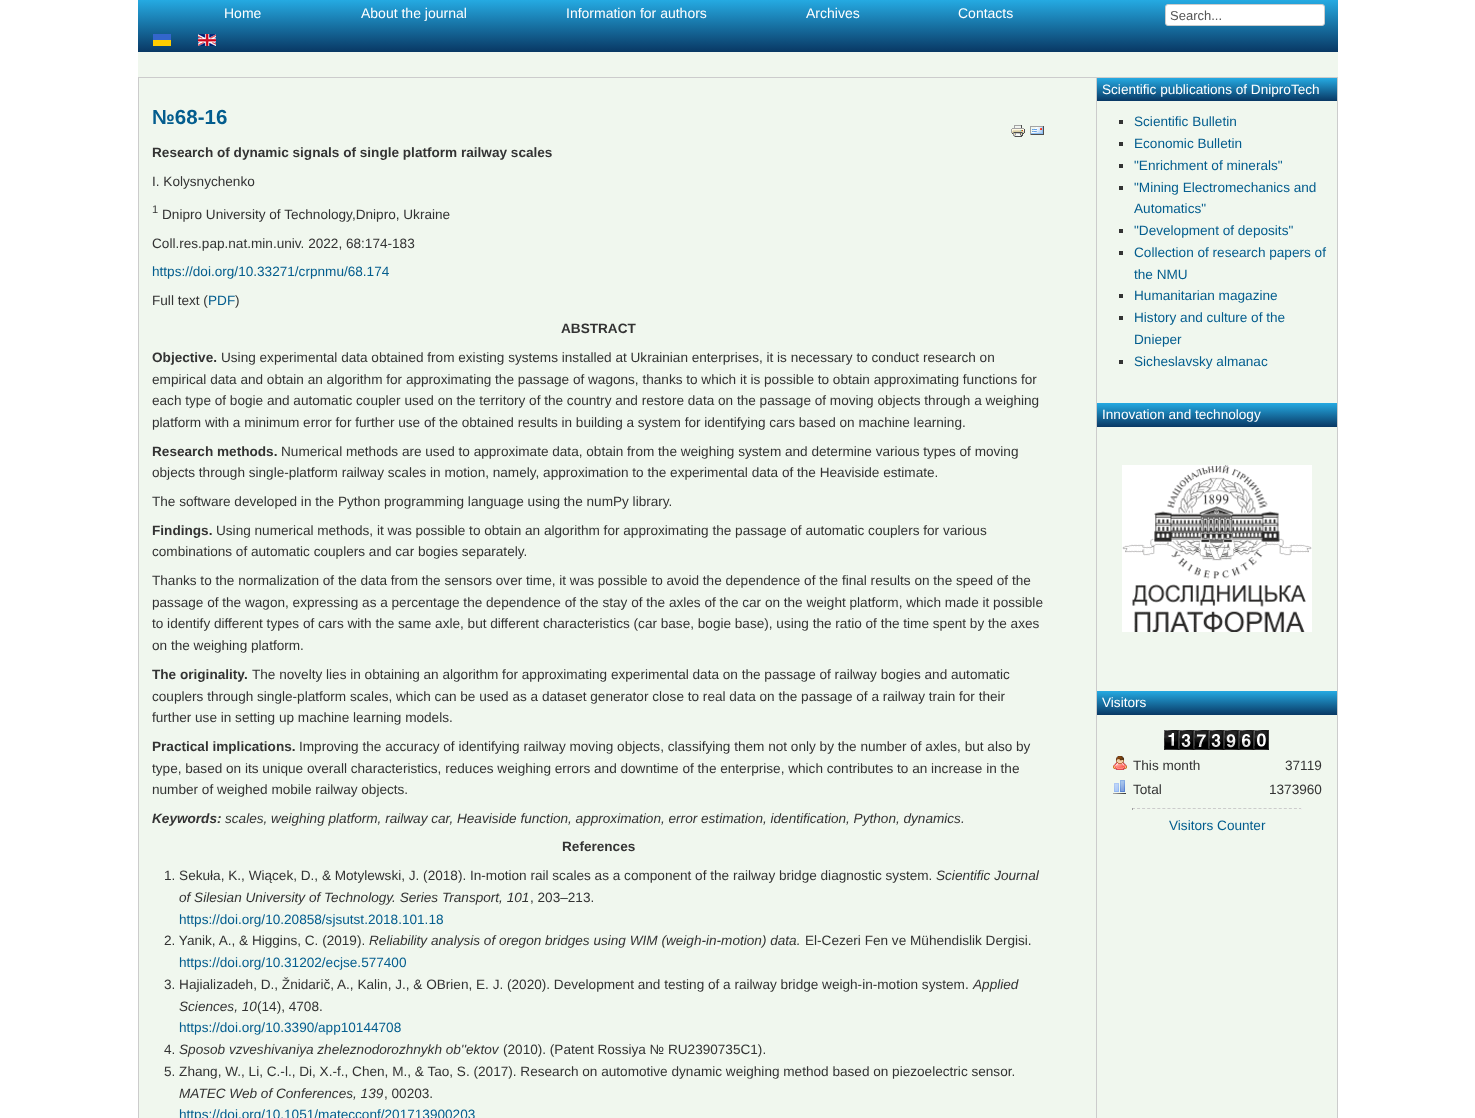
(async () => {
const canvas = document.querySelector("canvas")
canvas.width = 1475
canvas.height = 1118
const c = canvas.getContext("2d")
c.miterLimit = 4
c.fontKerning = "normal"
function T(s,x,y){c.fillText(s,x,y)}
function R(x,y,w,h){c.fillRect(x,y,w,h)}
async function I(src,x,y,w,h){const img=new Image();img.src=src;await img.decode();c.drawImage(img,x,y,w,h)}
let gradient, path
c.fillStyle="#fff"
R(0,0,1475,1118)
c.fillStyle="#f0f7ee"
R(138,52,1200,1066)
gradient = c.createLinearGradient(738,0,738,52)
gradient.addColorStop(0,"#25aae2")
gradient.addColorStop(1,"#093864")
c.fillStyle = gradient
R(138,0,1200,52)
c.font="14px Liberation Sans"
c.fillStyle="#fff"
T("Home",224,18)
T("About the journal",361,18)
T("Information for authors",566,18)
T("Archives",806,18)
T("Contacts",958,18)
await I("1.png",153,34,18,12)
await I("2.png",198,34,18,12)
c.beginPath()
c.roundRect(1165.5,4.5,159,21,2.5)
c.fill()
c.strokeStyle="#ccc"
c.stroke()
c.font="13px Liberation Sans"
c.fillStyle="#555"
T("Search...",1170,20)
c.strokeRect(138.5,77.5,1199,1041)
c.font="bold 20.5px Liberation Sans"
c.fillStyle="#035d8e"
T("№68-16",152,124)
await I("3.png",1011,125,14,12)
await I("4.png",1030,126,14,9)
c.font="bold 13.6px Liberation Sans"
c.fillStyle="#333"
T("Research of dynamic signals of single platform railway scales",152,157)
c.font="13.6px Liberation Sans"
T("I. Kolysnychenko",152,186)
c.font="11px Liberation Sans"
T("1",152,213)
c.font="13.6px Liberation Sans"
T("Dnipro University of Technology,Dnipro, Ukraine",162,219)
T("Coll.res.pap.nat.min.univ. 2022, 68:174-183",152,248)
c.fillStyle="#035d8e"
T("https://doi.org/10.33271/crpnmu/68.174",152,276)
c.fillStyle="#333"
T("Full text (",152,305)
c.fillStyle="#035d8e"
T("PDF",208,305)
c.fillStyle="#333"
T(")",235,305)
c.font="bold 13.6px Liberation Sans"
T("ABSTRACT",561,333)
T("Objective.",152,362)
c.font="13.6px Liberation Sans"
T("Using experimental data obtained from existing systems installed at Ukrainian enterprises, it is necessary to conduct research on",221,362)
T("empirical data and obtain an algorithm for approximating the passage of wagons, thanks to which it is possible to obtain approximating functions for",152,384)
T("each type of bogie and automatic coupler used on the territory of the country and restore data on the passage of moving objects through a weighing",152,405)
T("platform with a minimum error for further use of the obtained results in building a system for identifying cars based on machine learning.",152,427)
c.font="bold 13.6px Liberation Sans"
T("Research methods.",152,456)
c.font="13.6px Liberation Sans"
T("Numerical methods are used to approximate data, obtain from the weighing system and determine various types of moving",281,456)
T("objects through single-platform railway scales in motion, namely, approximation to the experimental data of the Heaviside estimate.",152,477)
T("The software developed in the Python programming language using the numPy library.",152,506)
c.font="bold 13.6px Liberation Sans"
T("Findings.",152,535)
c.font="13.6px Liberation Sans"
T("Using numerical methods, it was possible to obtain an algorithm for approximating the passage of automatic couplers for various",216,535)
T("combinations of automatic couplers and car bogies separately.",152,556)
T("Thanks to the normalization of the data from the sensors over time, it was possible to avoid the dependence of the final results on the speed of the",152,585)
T("passage of the wagon, expressing as a percentage the dependence of the stay of the axles of the car on the weight platform, which made it possible",152,607)
T("to identify different types of cars with the same axle, but different characteristics (car base, bogie base), using the ratio of the time spent by the axes",152,628)
T("on the weighing platform.",152,650)
c.font="bold 13.6px Liberation Sans"
T("The originality.",152,679)
c.font="13.6px Liberation Sans"
T("The novelty lies in obtaining an algorithm for approximating experimental data on the passage of railway bogies and automatic",252,679)
T("couplers through single-platform scales, which can be used as a dataset generator close to real data on the passage of a railway train for their",152,701)
T("further use in setting up machine learning models.",152,722)
c.font="bold 13.6px Liberation Sans"
T("Practical implications.",152,751)
c.font="13.6px Liberation Sans"
T("Improving the accuracy of identifying railway moving objects, classifying them not only by the number of axles, but also by",299,751)
T("type, based on its unique overall characteristics, reduces weighing errors and downtime of the enterprise, which contributes to an increase in the",152,773)
T("number of weighed mobile railway objects.",152,794)
c.font="italic bold 13.6px Liberation Sans"
T("Keywords:",152,823)
c.font="italic 13.6px Liberation Sans"
T("scales, weighing platform, railway car, Heaviside function, approximation, error estimation, identification, Python, dynamics.",225,823)
c.font="bold 13.6px Liberation Sans"
T("References",562,851)
c.font="13.6px Liberation Sans"
T("1. Sekuła, K., Wiącek, D., & Motylewski, J. (2018). In-motion rail scales as a component of the railway bridge diagnostic system.",164,880)
c.font="italic 13.6px Liberation Sans"
T("Scientific Journal",936,880)
T("of Silesian University of Technology. Series Transport, 101",179,902)
c.font="13.6px Liberation Sans"
T(", 203–213.",530,902)
c.fillStyle="#035d8e"
T("https://doi.org/10.20858/sjsutst.2018.101.18",179,924)
c.fillStyle="#333"
T("2. Yanik, A., & Higgins, C. (2019).",164,945)
c.font="italic 13.6px Liberation Sans"
T("Reliability analysis of oregon bridges using WIM (weigh-in-motion) data.",369,945)
c.font="13.6px Liberation Sans"
T("El-Cezeri Fen ve Mühendislik Dergisi.",805,945)
c.fillStyle="#035d8e"
T("https://doi.org/10.31202/ecjse.577400",179,967)
c.fillStyle="#333"
T("3. Hajializadeh, D., Žnidarič, A., Kalin, J., & OBrien, E. J. (2020). Development and testing of a railway bridge weigh-in-motion system.",164,989)
c.font="italic 13.6px Liberation Sans"
T("Applied",973,989)
T("Sciences, 10",179,1011)
c.font="13.6px Liberation Sans"
T("(14), 4708.",257,1011)
c.fillStyle="#035d8e"
T("https://doi.org/10.3390/app10144708",179,1032)
c.fillStyle="#333"
T("4.",164,1054)
c.font="italic 13.6px Liberation Sans"
T("Sposob vzveshivaniya zheleznodorozhnykh ob''ektov",179,1054)
c.font="13.6px Liberation Sans"
T("(2010). (Patent Rossiya № RU2390735C1).",503,1054)
T("5. Zhang, W., Li, C.-l., Di, X.-f., Chen, M., & Tao, S. (2017). Research on automotive dynamic weighing method based on piezoelectric sensor.",164,1076)
c.font="italic 13.6px Liberation Sans"
T("MATEC Web of Conferences, 139",179,1098)
c.font="13.6px Liberation Sans"
T(", 00203.",384,1098)
c.fillStyle="#035d8e"
T("https://doi.org/10.1051/matecconf/201713900203",179,1119)
c.fillStyle="#ccc"
R(1096,78,1,1040)
gradient = c.createLinearGradient(1217,78,1217,101)
gradient.addColorStop(0,"#25aae2")
gradient.addColorStop(1,"#093864")
c.fillStyle = gradient
R(1097,78,240,23)
c.fillStyle="#fff"
T("Scientific publications of DniproTech",1102,94)
c.fillStyle="#333"
R(1119,120,4,4)
c.fillStyle="#035d8e"
T("Scientific Bulletin",1134,126)
c.fillStyle="#333"
R(1119,142,4,4)
c.fillStyle="#035d8e"
T("Economic Bulletin",1134,148)
c.fillStyle="#333"
R(1119,164,4,4)
c.fillStyle="#035d8e"
T("\"Enrichment of minerals\"",1134,170)
c.fillStyle="#333"
R(1119,186,4,4)
c.fillStyle="#035d8e"
T("\"Mining Electromechanics and",1134,192)
T("Automatics\"",1134,213)
c.fillStyle="#333"
R(1119,229,4,4)
c.fillStyle="#035d8e"
T("\"Development of deposits\"",1134,235)
c.fillStyle="#333"
R(1119,251,4,4)
c.fillStyle="#035d8e"
T("Collection of research papers of",1134,257)
T("the NMU",1134,279)
c.fillStyle="#333"
R(1119,294,4,4)
c.fillStyle="#035d8e"
T("Humanitarian magazine",1134,300)
c.fillStyle="#333"
R(1119,316,4,4)
c.fillStyle="#035d8e"
T("History and culture of the",1134,322)
T("Dnieper",1134,344)
c.fillStyle="#333"
R(1119,360,4,4)
c.fillStyle="#035d8e"
T("Sicheslavsky almanac",1134,366)
gradient = c.createLinearGradient(1217,403,1217,427)
gradient.addColorStop(0,"#25aae2")
gradient.addColorStop(1,"#093864")
c.fillStyle = gradient
R(1097,403,240,24)
c.fillStyle="#fff"
T("Innovation and technology",1102,419)
await I("5.png",1122,465,190,167)
gradient = c.createLinearGradient(1217,691,1217,715)
gradient.addColorStop(0,"#25aae2")
gradient.addColorStop(1,"#093864")
c.fillStyle = gradient
R(1097,691,240,24)
c.fillStyle="#fff"
T("Visitors",1102,707)
await I("6.png",1164,730,15,20)
await I("7.png",1179,730,15,20)
await I("8.png",1194,730,15,20)
await I("7.png",1209,730,15,20)
await I("9.png",1224,730,15,20)
await I("10.png",1239,730,15,20)
await I("11.png",1254,730,15,20)
await I("12.png",1113,756,14,14)
await I("13.png",1113,780,13,14)
c.fillStyle="#333"
T("This month",1133,770)
T("Total",1133,794)
T("37119",1285,770)
T("1373960",1269,794)
path = new Path2D("M1132 808.5h170")
c.setLineDash([3,2.06])
c.stroke(path)
c.fillStyle="#eee"
R(1301,808,1,2)
c.fillStyle="#9f9f9f"
R(1132,808,1,2)
c.fillStyle="#035d8e"
T("Visitors Counter",1169,830)
})()
